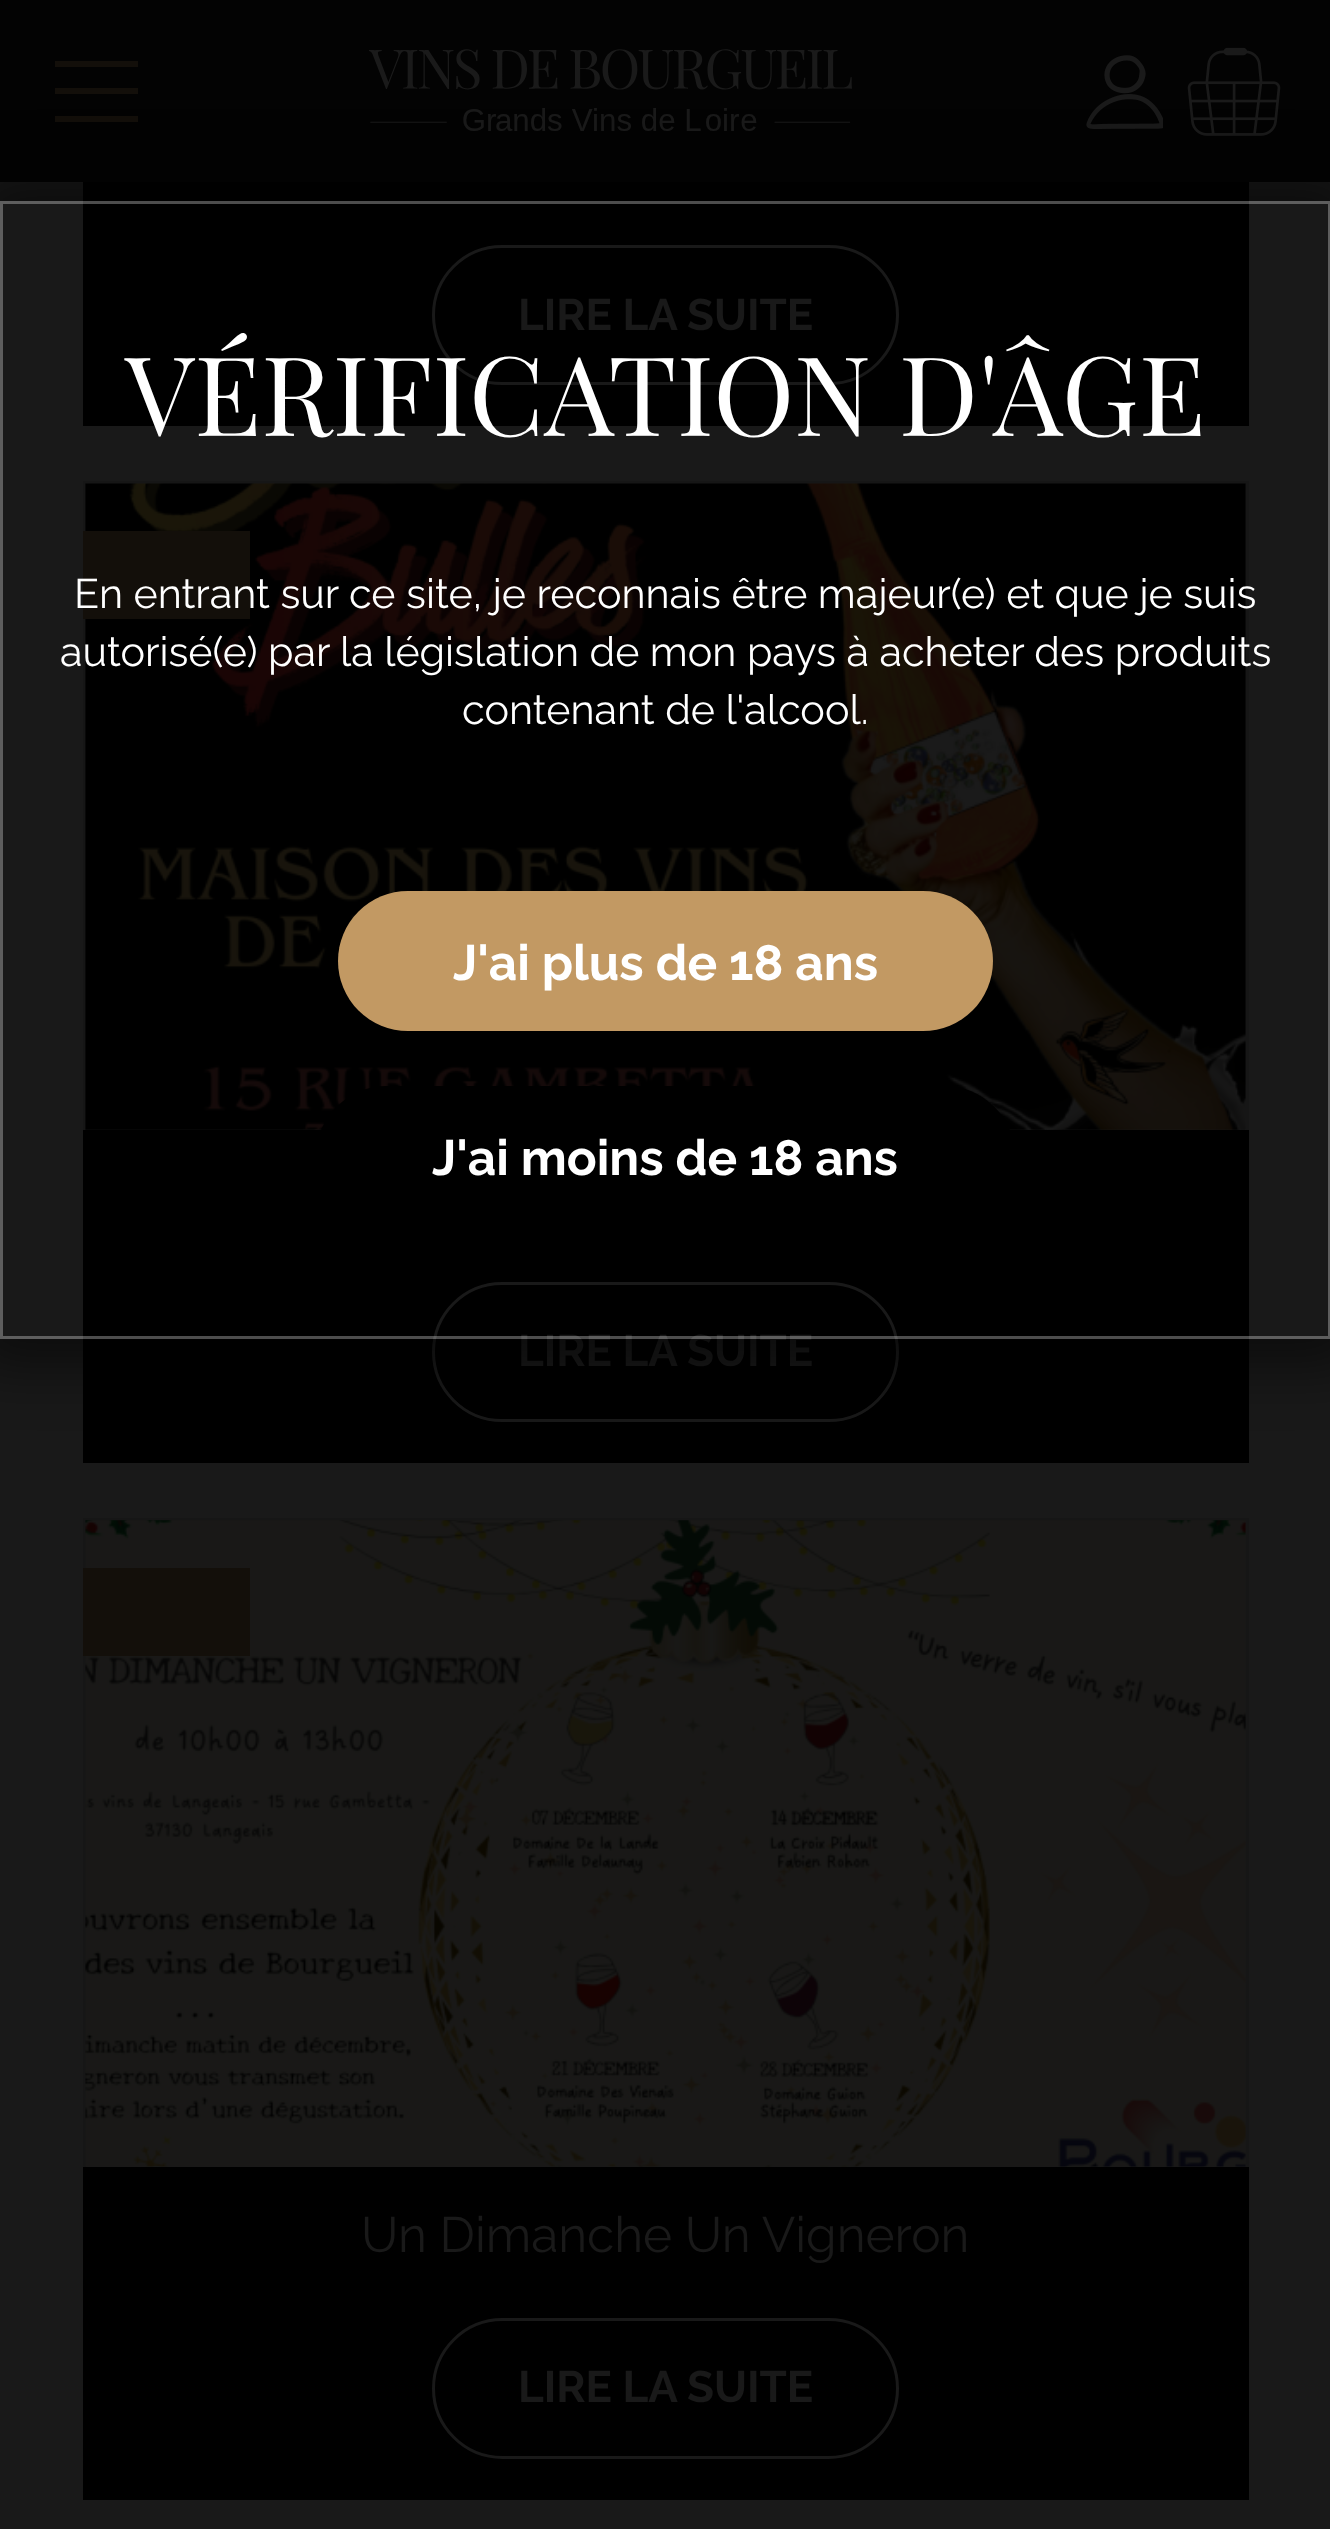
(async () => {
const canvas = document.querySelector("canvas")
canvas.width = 1330
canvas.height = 2529
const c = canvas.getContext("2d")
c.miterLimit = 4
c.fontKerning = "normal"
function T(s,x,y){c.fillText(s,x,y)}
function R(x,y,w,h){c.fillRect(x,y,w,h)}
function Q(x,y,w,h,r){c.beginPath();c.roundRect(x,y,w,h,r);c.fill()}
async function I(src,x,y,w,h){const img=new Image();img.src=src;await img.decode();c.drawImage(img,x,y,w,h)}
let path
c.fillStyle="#191919"
R(0,0,1330,2529)
c.fillStyle="#030303"
R(0,0,1330,182)
c.fillStyle="#130f0a"
R(55,61,83,6)
R(55,88,83,6)
R(55,116,83,6)
await I("1.png",369,49,483,82)
await I("2.png",1086,55,77,74)
await I("3.png",1187,47,94,89)
c.fillStyle="#000"
R(83,182,1166,244)
c.beginPath()
c.roundRect(433.5,246.5,464,137,68.5)
c.strokeStyle="#191919"
c.lineWidth=3
c.stroke()
c.font="bold 44px Raleway"
c.fillStyle="#191919"
T("LIRE LA SUITE",518,330)
c.fillStyle="#161616"
R(83,481,1166,3)
R(1246,481,3,649)
R(83,481,3,649)
await I("4.png",85,483,1161,647)
c.fillStyle="#130f0a"
R(83,531,167,88)
c.fillStyle="#000"
R(83,1130,1166,333)
c.beginPath()
c.roundRect(433.5,1283.5,464,137,68.5)
c.stroke()
c.fillStyle="#191919"
T("LIRE LA SUITE",518,1366)
c.fillStyle="#161616"
R(83,1518,1166,3)
R(1246,1518,3,649)
R(83,1518,3,649)
await I("5.png",85,1520,1161,647)
c.fillStyle="#130f0a"
R(83,1568,167,88)
c.fillStyle="#000"
R(83,2167,1166,333)
c.font="49.5px Raleway"
c.fillStyle="#191919"
T("Un Dimanche Un Vigneron",361,2252)
c.beginPath()
c.roundRect(433.5,2319.5,464,138,69)
c.stroke()
c.font="bold 44px Raleway"
T("LIRE LA SUITE",518,2402)
c.save()
path = new Path2D("M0 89h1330v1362h-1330zm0 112h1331v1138h-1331z")
c.clip(path,"evenodd")
c.fillStyle="#00000080"
c.filter="blur(27.5px)"
c.beginPath()
c.rect(-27,173,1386,1194)
c.fill()
c.filter="none"
c.restore()
c.strokeStyle="#ffffff4d"
c.strokeRect(1.5,202.5,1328,1135)
c.font="110px Playfair Display"
c.fillStyle="#fff"
T("VÉRIFICATION D'ÂGE",125,436)
c.font="41.25px Raleway"
T("En entrant sur ce site, je reconnais être majeur(e) et que je suis",74,608)
T("autorisé(e) par la législation de mon pays à acheter des produits",60,666)
T("contenant de l'alcool.",462,724)
c.fillStyle="#c29963"
Q(338,891,655,140,70)
c.font="bold 49.5px Raleway"
c.fillStyle="#fff"
T("J'ai plus de 18 ans",453,980)
c.fillStyle="#000"
Q(316,1086,699,141,70.5)
c.fillStyle="#fff"
T("J'ai moins de 18 ans",432,1175)
})()
